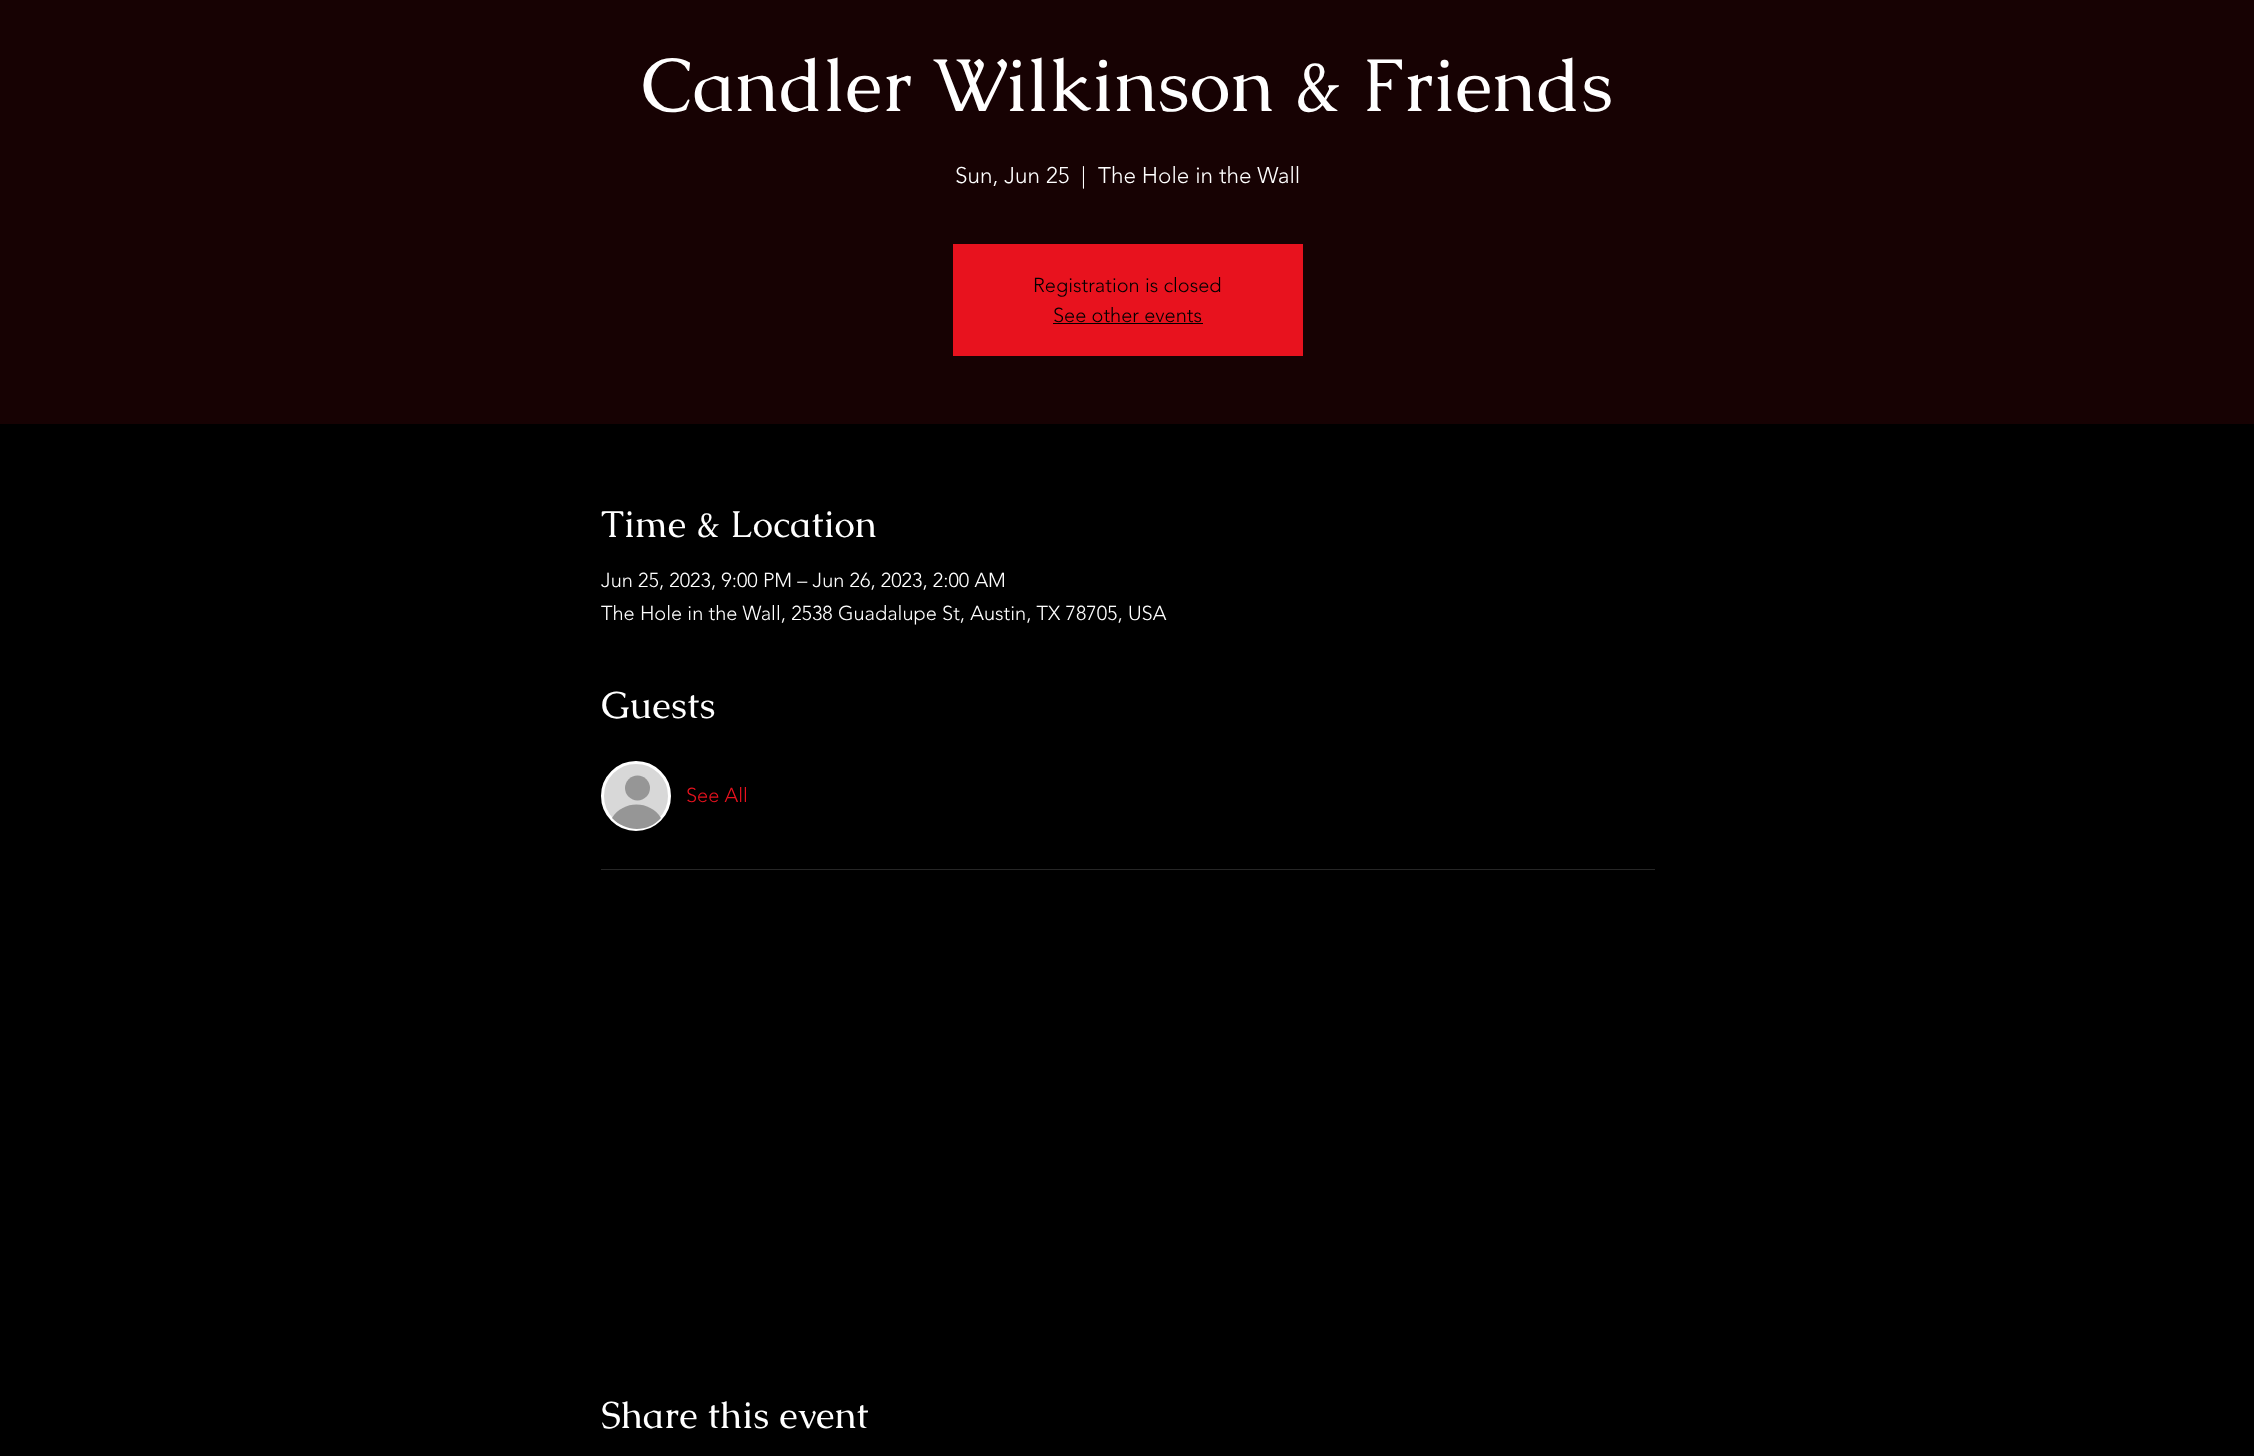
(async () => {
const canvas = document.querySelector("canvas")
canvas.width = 2254
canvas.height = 1456
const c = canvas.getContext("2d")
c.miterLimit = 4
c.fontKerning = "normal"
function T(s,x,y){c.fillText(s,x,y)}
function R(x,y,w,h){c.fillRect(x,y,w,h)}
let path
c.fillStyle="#000"
R(0,0,2254,1456)
c.fillStyle="#170203"
R(0,0,2254,424)
c.font="75px Caudex"
c.fillStyle="#fff"
T("Candler Wilkinson & Friends",641,111)
c.font="300 22.5px 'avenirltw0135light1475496'"
T("Sun, Jun 25",955,183)
T("|",1081,183)
T("The Hole in the Wall",1098,183)
c.fillStyle="#e8121e"
R(953,244,350,112)
c.font="300 20px 'avenirltw0135light1475496'"
c.fillStyle="#000"
T("Registration is closed",1033,292)
T("See other events",1053,322)
R(1053,323,150,1)
c.font="37.5px Caudex"
c.fillStyle="#fff"
T("Time & Location",601,537)
c.font="300 20px 'avenirltw0135light1475496'"
T("Jun 25, 2023, 9:00 PM – Jun 26, 2023, 2:00 AM",601,587)
T("The Hole in the Wall, 2538 Guadalupe St, Austin, TX 78705, USA",601,620)
c.font="37.5px Caudex"
T("Guests",601,718)
c.fillStyle="#d8d8d8"
c.beginPath()
c.arc(636,796,33.5,0,7)
c.fill()
c.strokeStyle="#fff"
c.lineWidth=3
c.stroke()
c.fillStyle="#969696"
c.beginPath()
c.arc(637.5,788,12.5,0,7)
c.fill()
path = new Path2D("M661 818c-13 15-36 14-49 0c11-18 38-18 49 0z")
c.fill(path)
c.font="300 20px 'avenirltw0135light1475496'"
c.fillStyle="#e8121e"
T("See All",686,802)
c.fillStyle="#262626"
R(601,869,1054,1)
c.font="37.5px Caudex"
c.fillStyle="#fff"
T("Share this event",601,1428)
})()
